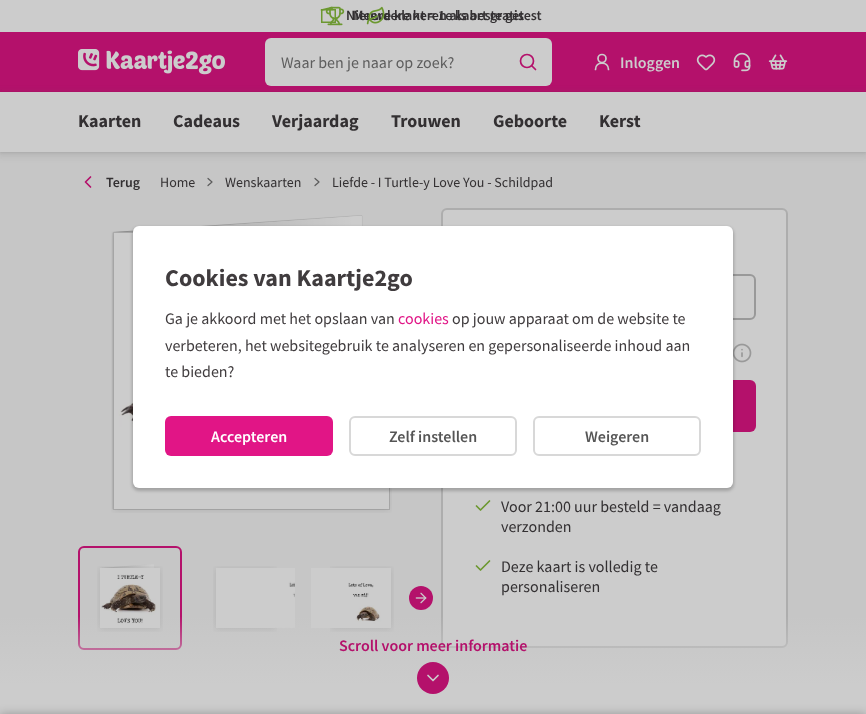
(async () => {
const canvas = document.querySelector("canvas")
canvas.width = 866
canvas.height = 714
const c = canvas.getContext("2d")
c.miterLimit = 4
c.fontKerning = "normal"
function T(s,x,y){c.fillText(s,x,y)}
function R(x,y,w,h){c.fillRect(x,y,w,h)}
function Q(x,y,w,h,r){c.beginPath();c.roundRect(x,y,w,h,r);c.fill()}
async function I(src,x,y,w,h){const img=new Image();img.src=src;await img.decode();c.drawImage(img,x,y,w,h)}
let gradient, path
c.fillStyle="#ccc"
R(0,0,866,714)
c.font="600 14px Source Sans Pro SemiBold"
c.fillStyle="#333032"
T("Nieuwe klant = 1e kaart gratis",346,20)
T("Meerdere keren als beste getest",353,20)
await I("1.png",366,6,19,19)
path = new Path2D("M321.5 10l10.5-2.5v2")
c.strokeStyle="#6c9830"
c.lineWidth=1.7
c.lineCap="round"
c.lineJoin="round"
c.stroke(path)
c.lineWidth=1.5
c.lineJoin="miter"
c.strokeRect(321.75,9.75,13.5,12.5)
await I("2.png",325,6,20,20)
c.fillStyle="#b4116b"
R(0,32,866,60)
await I("3.png",78,49,147,26)
c.fillStyle="#c6c6c6"
R(0,152,866,532)
c.fillStyle="#4f4f4f1a"
c.filter="blur(3px)"
c.beginPath()
c.rect(-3,91,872,66)
c.fill()
c.filter="none"
c.fillStyle="#ccc"
Q(265,38,287,48,6)
c.font="16px Source Sans Pro"
c.fillStyle="#5e5e5e"
T("Waar ben je naar op zoek?",281,68)
path = new Path2D("M535.5 69.5l-3.5-3.5")
c.strokeStyle="#b4116b"
c.lineWidth=1.7
c.lineJoin="round"
c.stroke(path)
c.beginPath()
c.arc(527,61,6.5,0,7)
c.stroke()
c.beginPath()
c.arc(602,58.5,4,0,7)
c.strokeStyle="#ccc"
c.stroke()
path = new Path2D("M608.5 69.5c0-8.5-13-8.5-13 0")
c.stroke(path)
c.font="600 16px Source Sans Pro SemiBold"
c.fillStyle="#ccc"
T("Inloggen",620,68)
await I("4.png",696,54,20,17)
await I("5.png",733,52,18,20)
await I("6.png",768,54,20,16)
c.fillStyle="#3535351a"
c.filter="blur(1px)"
c.beginPath()
c.rect(0,93,866,60)
c.fill()
c.filter="none"
c.fillStyle="#ccc"
R(0,92,866,60)
c.font="bold 18px Source Sans Pro"
c.fillStyle="#333032"
T("Kaarten",78,127)
T("Cadeaus",173,127)
T("Verjaardag",272,127)
T("Trouwen",391,127)
T("Geboorte",493,127)
T("Kerst",599,127)
path = new Path2D("M90.5 187l-5-5l5-5")
c.strokeStyle="#b4116b"
c.stroke(path)
c.font="600 14px Source Sans Pro SemiBold"
T("Terug",106,187)
c.font="14px Source Sans Pro"
T("Home",160,187)
path = new Path2D("M208 185.5l4-3.5l-4-3.5")
c.strokeStyle="#5c5c5c"
c.lineWidth=1.2
c.stroke(path)
T("Wenskaarten",225,187)
path = new Path2D("M315 185.5l4-3.5l-4-3.5")
c.stroke(path)
T("Liefde - I Turtle-y Love You - Schildpad",332,187)
c.fillStyle="#ccc"
path = new Path2D("M113 232l250-17v277l-250 18z")
c.fill(path)
path = new Path2D("M113 232.5l249-17v276.5l-249 17.5z")
c.strokeStyle="#adadad"
c.lineWidth=1
c.lineCap="butt"
c.lineJoin="miter"
c.stroke(path)
await I("7.png",125,215,237,17)
gradient = c.createLinearGradient(113,371,363,354)
gradient.addColorStop(0,"#00000033")
gradient.addColorStop(1,"#00000000")
c.fillStyle = gradient
path = new Path2D("M113 232l250-17v277l-250 18z")
c.fill(path)
c.strokeRect(113.5,232.5,276,277)
await I("8.png",111,231,281,282)
c.beginPath()
c.roundRect(79,547,102,102,5)
c.strokeStyle="#b4116b"
c.lineWidth=2
c.stroke()
await I("9.png",100,564,54,4)
gradient = c.createLinearGradient(100,598,154,594)
gradient.addColorStop(0,"#00000033")
gradient.addColorStop(1,"#00000000")
c.fillStyle = gradient
path = new Path2D("M100 568l54-4v60l-54 4z")
c.fill(path)
await I("10.png",97,566,66,66)
await I("11.png",213,566,64,66)
await I("12.png",275,568,20,60)
await I("13.png",330,566,64,66)
c.fillStyle="#ccc"
R(311,568,20,60)
c.fillStyle="#b4116b"
c.beginPath()
c.arc(421,598,12,0,7)
c.fill()
await I("14.png",415,592,12,12)
c.fillStyle="#ccc"
c.beginPath()
c.roundRect(442,209,345,438,5)
c.fill()
c.strokeStyle="#adadad"
c.stroke()
c.beginPath()
c.roundRect(620,275,135,44,5)
c.strokeStyle="#999"
c.stroke()
await I("15.png",733,343,19,20)
c.fillStyle="#b4116b"
Q(473,380,283,52,6)
path = new Path2D("M489.5 501l-9 9l-4-4")
c.strokeStyle="#6c9830"
c.lineWidth=1.7
c.lineCap="round"
c.lineJoin="round"
c.stroke(path)
c.font="16px Source Sans Pro"
c.fillStyle="#333032"
T("Voor 21:00 uur besteld = vandaag",501,512)
T("verzonden",501,532)
path = new Path2D("M489.5 561l-9 9l-4-4")
c.stroke(path)
T("Deze kaart is volledig te",501,572)
T("personaliseren",501,592)
gradient = c.createLinearGradient(433,616,433,714)
gradient.addColorStop(0,"#cccccc00")
gradient.addColorStop(.7,"#ccc")
c.fillStyle = gradient
R(0,617,866,67)
c.font="600 16px Source Sans Pro SemiBold"
c.fillStyle="#b4116b"
T("Scroll voor meer informatie",339,651)
c.beginPath()
c.arc(433,678,16,0,7)
c.fill()
path = new Path2D("M428 675.5l5 5l5-5")
c.strokeStyle="#ccc"
c.stroke(path)
c.fillStyle="#00000040"
c.filter="blur(5px)"
c.beginPath()
c.rect(0,714,866,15)
c.fill()
c.filter="none"
c.fillStyle="#00000033"
c.filter="blur(1.5px)"
c.beginPath()
c.roundRect(132,227,602,264,7)
c.fill()
c.filter="none"
c.fillStyle="#fff"
Q(133,226,600,262,6)
c.font="bold 24px Source Sans Pro"
c.fillStyle="#403c3e"
T("Cookies van Kaartje2go",165,286)
c.font="16px Source Sans Pro"
T("Ga je akkoord met het opslaan van",165,324)
c.fillStyle="#e11586"
T("cookies",398,324)
c.fillStyle="#403c3e"
T("op jouw apparaat om de website te",452,324)
T("verbeteren, het websitegebruik te analyseren en gepersonaliseerde inhoud aan",165,351)
T("te bieden?",165,377)
c.fillStyle="#e11586"
Q(165,416,168,40,6)
c.font="600 16px Source Sans Pro SemiBold"
c.fillStyle="#fff"
T("Accepteren",211,442)
c.beginPath()
c.roundRect(350,417,166,38,5)
c.strokeStyle="#d8d8d8"
c.lineWidth=2
c.lineJoin="miter"
c.stroke()
c.fillStyle="#555"
T("Zelf instellen",389,442)
c.beginPath()
c.roundRect(534,417,166,38,5)
c.stroke()
T("Weigeren",585,442)
})()
